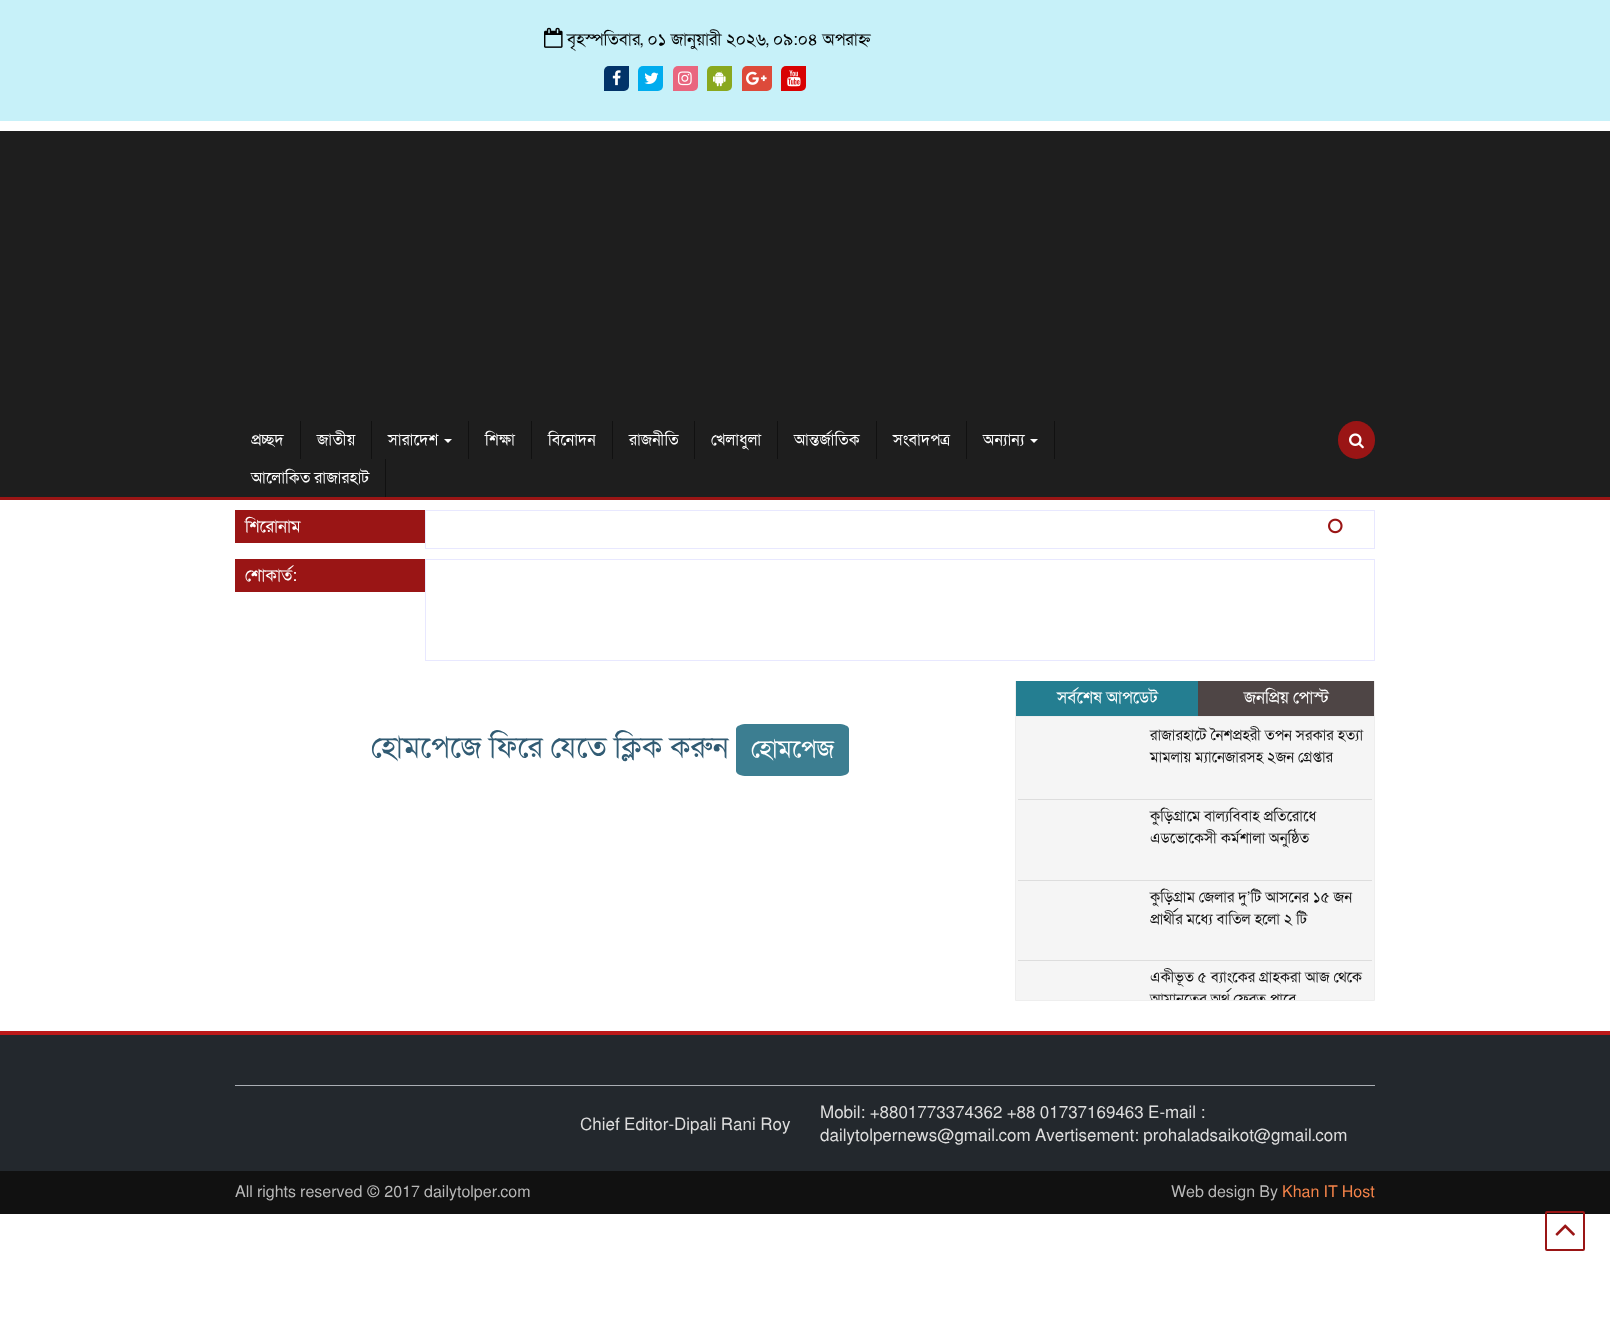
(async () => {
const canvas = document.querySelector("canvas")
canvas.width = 1610
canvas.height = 1321
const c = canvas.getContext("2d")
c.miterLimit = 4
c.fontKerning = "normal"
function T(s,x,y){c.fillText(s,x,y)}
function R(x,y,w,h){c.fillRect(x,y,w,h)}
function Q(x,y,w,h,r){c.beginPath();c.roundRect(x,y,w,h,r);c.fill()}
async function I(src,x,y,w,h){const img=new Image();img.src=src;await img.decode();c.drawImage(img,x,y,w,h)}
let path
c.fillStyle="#fff"
R(0,0,1610,1321)
c.fillStyle="#c7f1f9"
R(0,0,1610,121)
await I("1.png",544,27,19,21)
c.font="17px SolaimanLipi"
c.fillStyle="#000"
T("বৃহস্পতিবার, ০১ জানুয়ারী ২০২৬, ০৯:০৪ অপরাহ্ন",567,45)
c.fillStyle="#023369"
c.beginPath()
c.roundRect(604,66,25,25,[5,0,5,0])
c.fill()
await I("2.png",612,70,9,16)
c.fillStyle="#00acee"
c.beginPath()
c.roundRect(638,66,25,25,[5,0,5,0])
c.fill()
await I("3.png",644,72,15,12)
c.fillStyle="#e9667f"
c.beginPath()
c.roundRect(673,66,25,25,[5,0,5,0])
c.fill()
await I("4.png",678,71,14,15)
c.fillStyle="#89a81e"
c.beginPath()
c.roundRect(707,66,25,25,[5,0,5,0])
c.fill()
await I("5.png",713,71,13,16)
c.fillStyle="#dd4a3a"
c.beginPath()
c.roundRect(742,66,30,25,[5,0,5,0])
c.fill()
await I("6.png",746,71,21,14)
c.fillStyle="#d80202"
c.beginPath()
c.roundRect(781,66,25,25,[5,0,5,0])
c.fill()
await I("7.png",787,70,14,17)
c.fillStyle="#1e1e1e"
R(0,131,1610,366)
c.fillStyle="#9a1515"
R(0,497,1610,3)
c.fillStyle="#111"
R(300,421,1,38)
c.font="16px SolaimanLipi"
c.fillStyle="#fff"
T("প্রচ্ছদ",251,445)
c.fillStyle="#111"
R(371,421,1,38)
c.fillStyle="#fff"
T("জাতীয়",317,445)
c.fillStyle="#111"
R(468,421,1,38)
c.fillStyle="#fff"
T("সারাদেশ",388,445)
path = new Path2D("M444 439h8l-4 4z")
c.fill(path)
c.fillStyle="#111"
R(531,421,1,38)
c.fillStyle="#fff"
T("শিক্ষা",485,445)
c.fillStyle="#111"
R(612,421,1,38)
c.fillStyle="#fff"
T("বিনোদন",548,445)
c.fillStyle="#111"
R(694,421,1,38)
c.fillStyle="#fff"
T("রাজনীতি",629,445)
c.fillStyle="#111"
R(777,421,1,38)
c.fillStyle="#fff"
T("খেলাধুলা",711,445)
c.fillStyle="#111"
R(876,421,1,38)
c.fillStyle="#fff"
T("আন্তর্জাতিক",794,445)
c.fillStyle="#111"
R(966,421,1,38)
c.fillStyle="#fff"
T("সংবাদপত্র",893,445)
c.fillStyle="#111"
R(1054,421,1,38)
c.fillStyle="#fff"
T("অন্যান্য",983,445)
path = new Path2D("M1030 439h8l-4 4z")
c.fill(path)
c.fillStyle="#111"
R(385,459,1,38)
c.fillStyle="#fff"
T("আলোকিত রাজারহাট",251,483)
c.fillStyle="#9a1515"
Q(1338,421,37,38,18.5)
await I("8.png",1349,433,15,16)
R(235,510,190,33)
c.font="17px SolaimanLipi"
c.fillStyle="#fff"
T("শিরোনাম",245,532)
c.strokeStyle="#e8e8ff"
c.strokeRect(425.5,510.5,949,38)
await I("9.png",1328,518,15,16)
c.fillStyle="#9a1515"
R(235,559,190,33)
c.fillStyle="#fff"
T("শোকার্ত:",245,581)
c.strokeRect(425.5,559.5,949,101)
c.font="30px SolaimanLipi"
c.fillStyle="#315b73"
T("হোমপেজে ফিরে যেতে ক্লিক করুন",371,757)
c.fillStyle="#3c7e91"
path = new Path2D("M747 724h91c6 0 11 2 11 5v42c0 3-5 5-11 5h-91c-6 0-11-2-11-5v-42c0-3 5-5 11-5z")
c.fill(path)
c.font="25px SolaimanLipi"
c.fillStyle="#fff"
T("হোমপেজ",751,757)
c.fillStyle="#4e4545"
R(1198,681,176,35)
c.fillStyle="#eee"
R(1374,681,1,35)
R(1015,681,1,35)
c.fillStyle="#247e91"
R(1016,681,182,35)
c.font="17px SolaimanLipi"
c.fillStyle="#fff"
T("সর্বশেষ আপডেট",1057,703)
T("জনপ্রিয় পোস্ট",1244,703)
c.fillStyle="#f5f5f5"
c.beginPath()
c.rect(1015.5,716.5,359,284)
c.fill()
c.strokeStyle="#eee"
c.stroke()
c.fillStyle="#ddd"
R(1018,799,354,1)
c.font="15px SolaimanLipi"
c.fillStyle="#111"
T("রাজারহাটে নৈশপ্রহরী তপন সরকার হত্যা",1150,740)
T("মামলায় ম্যানেজারসহ ২জন গ্রেপ্তার",1150,762)
c.fillStyle="#ddd"
R(1018,880,354,1)
c.fillStyle="#111"
T("কুড়িগ্রামে বাল্যবিবাহ প্রতিরোধে",1150,821)
T("এডভোকেসী কর্মশালা অনুষ্ঠিত",1150,843)
c.fillStyle="#ddd"
R(1018,960,354,1)
c.fillStyle="#111"
T("কুড়িগ্রাম জেলার দু’টি আসনের ১৫ জন",1150,902)
T("প্রার্থীর মধ্যে বাতিল হলো ২ টি",1150,924)
T("একীভূত ৫ ব্যাংকের গ্রাহকরা আজ থেকে",1150,982)
c.save()
c.beginPath()
c.rect(1018,961,354,39)
c.clip()
T("আমানতের অর্থ ফেরত পাবে",1150,1004)
c.restore()
c.fillStyle="#23282d"
R(0,1035,1610,136)
c.fillStyle="#bb1919"
R(0,1031,1610,4)
c.fillStyle="#aaaeb4"
R(235,1085,1140,1)
c.font="17px SolaimanLipi"
c.fillStyle="#ddd"
T("Chief Editor-Dipali Rani Roy",580,1130)
T("Mobil: +8801773374362 +88 01737169463 E-mail :",820,1118)
T("dailytolpernews@gmail.com Avertisement: prohaladsaikot@gmail.com",820,1141)
c.fillStyle="#111"
R(0,1171,1610,43)
c.font="16px SolaimanLipi"
c.fillStyle="#b8b8b8"
T("All rights reserved © 2017 dailytolper.com",235,1197)
T("Web design By",1171,1197)
c.fillStyle="#f5844a"
T("Khan IT Host",1282,1197)
c.beginPath()
c.roundRect(1546,1212,38,38,1)
c.strokeStyle="#9a1515"
c.lineWidth=2
c.stroke()
await I("10.png",1555,1224,20,12)
})()
